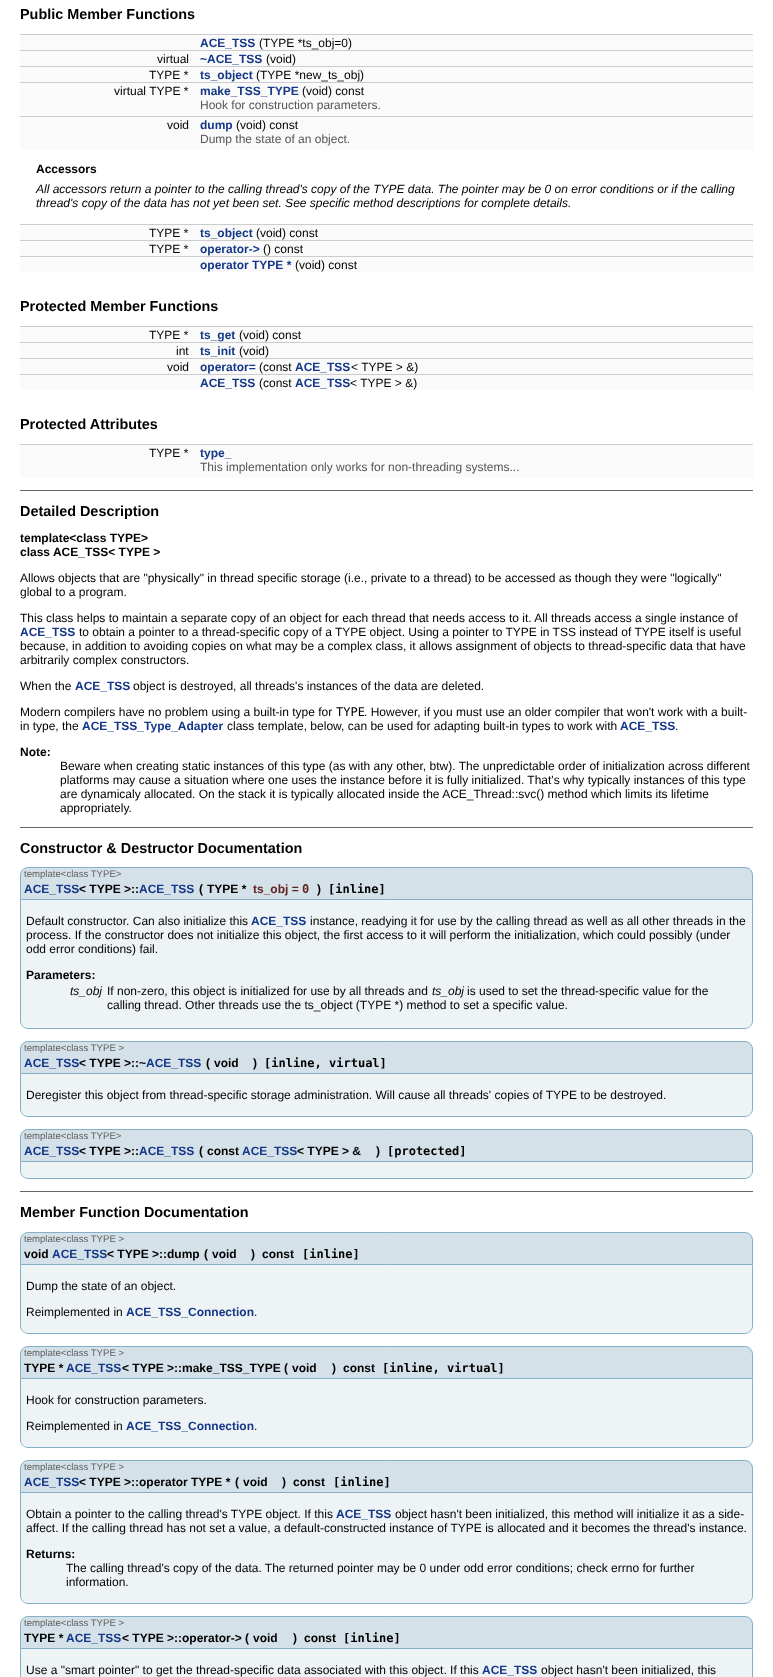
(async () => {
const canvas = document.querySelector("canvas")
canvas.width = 773
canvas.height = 1677
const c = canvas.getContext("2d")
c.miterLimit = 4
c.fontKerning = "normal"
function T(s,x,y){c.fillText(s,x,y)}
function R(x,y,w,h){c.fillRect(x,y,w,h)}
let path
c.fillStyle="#fff"
R(0,0,773,1677)
c.font="bold 14.4px Liberation Sans"
c.fillStyle="#000"
T("Public Member Functions",20,19)
c.fillStyle="#fafafa"
R(20,35,733,15)
c.fillStyle="#ccc"
R(20,34,733,1)
c.font="bold 12px Liberation Sans"
c.fillStyle="#153788"
T("ACE_TSS",200,47)
c.font="12px Liberation Sans"
c.fillStyle="#000"
T("(TYPE *ts_obj=0)",259,47)
c.fillStyle="#fafafa"
R(20,51,733,15)
c.fillStyle="#ccc"
R(20,50,733,1)
c.fillStyle="#000"
T("virtual",157,63)
c.font="bold 12px Liberation Sans"
c.fillStyle="#153788"
T("~ACE_TSS",200,63)
c.font="12px Liberation Sans"
c.fillStyle="#000"
T("(void)",266,63)
c.fillStyle="#fafafa"
R(20,67,733,15)
c.fillStyle="#ccc"
R(20,66,733,1)
c.fillStyle="#000"
T("TYPE *",149,79)
c.font="bold 12px Liberation Sans"
c.fillStyle="#153788"
T("ts_object",200,79)
c.font="12px Liberation Sans"
c.fillStyle="#000"
T("(TYPE *new_ts_obj)",256,79)
c.fillStyle="#fafafa"
R(20,83,733,15)
c.fillStyle="#ccc"
R(20,82,733,1)
c.fillStyle="#000"
T("virtual TYPE *",114,95)
c.font="bold 12px Liberation Sans"
c.fillStyle="#153788"
T("make_TSS_TYPE",200,95)
c.font="12px Liberation Sans"
c.fillStyle="#000"
T("(void) const",302,95)
c.fillStyle="#fafafa"
R(20,98,733,18)
c.fillStyle="#555"
T("Hook for construction parameters.",200,109)
c.fillStyle="#fafafa"
R(20,117,733,15)
c.fillStyle="#ccc"
R(20,116,733,1)
c.fillStyle="#000"
T("void",167,129)
c.font="bold 12px Liberation Sans"
c.fillStyle="#153788"
T("dump",200,129)
c.font="12px Liberation Sans"
c.fillStyle="#000"
T("(void) const",236,129)
c.fillStyle="#fafafa"
R(20,132,733,18)
c.fillStyle="#555"
T("Dump the state of an object.",200,143)
c.font="bold 12px Liberation Sans"
c.fillStyle="#000"
T("Accessors",36,173)
c.font="italic 12px Liberation Sans"
T("All accessors return a pointer to the calling thread's copy of the TYPE data. The pointer may be 0 on error conditions or if the calling",36,193)
T("thread's copy of the data has not yet been set. See specific method descriptions for complete details.",36,207)
c.fillStyle="#fafafa"
R(20,225,733,15)
c.fillStyle="#ccc"
R(20,224,733,1)
c.font="12px Liberation Sans"
c.fillStyle="#000"
T("TYPE *",149,237)
c.font="bold 12px Liberation Sans"
c.fillStyle="#153788"
T("ts_object",200,237)
c.font="12px Liberation Sans"
c.fillStyle="#000"
T("(void) const",256,237)
c.fillStyle="#fafafa"
R(20,241,733,15)
c.fillStyle="#ccc"
R(20,240,733,1)
c.fillStyle="#000"
T("TYPE *",149,253)
c.font="bold 12px Liberation Sans"
c.fillStyle="#153788"
T("operator->",200,253)
c.font="12px Liberation Sans"
c.fillStyle="#000"
T("() const",263,253)
c.fillStyle="#fafafa"
R(20,257,733,15)
c.fillStyle="#ccc"
R(20,256,733,1)
c.font="bold 12px Liberation Sans"
c.fillStyle="#153788"
T("operator TYPE *",200,269)
c.font="12px Liberation Sans"
c.fillStyle="#000"
T("(void) const",295,269)
c.font="bold 14.4px Liberation Sans"
T("Protected Member Functions",20,311)
c.fillStyle="#fafafa"
R(20,327,733,15)
c.fillStyle="#ccc"
R(20,326,733,1)
c.font="12px Liberation Sans"
c.fillStyle="#000"
T("TYPE *",149,339)
c.font="bold 12px Liberation Sans"
c.fillStyle="#153788"
T("ts_get",200,339)
c.font="12px Liberation Sans"
c.fillStyle="#000"
T("(void) const",239,339)
c.fillStyle="#fafafa"
R(20,343,733,15)
c.fillStyle="#ccc"
R(20,342,733,1)
c.fillStyle="#000"
T("int",176,355)
c.font="bold 12px Liberation Sans"
c.fillStyle="#153788"
T("ts_init",200,355)
c.font="12px Liberation Sans"
c.fillStyle="#000"
T("(void)",239,355)
c.fillStyle="#fafafa"
R(20,359,733,15)
c.fillStyle="#ccc"
R(20,358,733,1)
c.fillStyle="#000"
T("void",167,371)
c.font="bold 12px Liberation Sans"
c.fillStyle="#153788"
T("operator=",200,371)
c.font="12px Liberation Sans"
c.fillStyle="#000"
T("(const",259,371)
c.font="bold 12px Liberation Sans"
c.fillStyle="#153788"
T("ACE_TSS",295,371)
c.font="12px Liberation Sans"
c.fillStyle="#000"
T("< TYPE > &)",351,371)
c.fillStyle="#fafafa"
R(20,375,733,15)
c.fillStyle="#ccc"
R(20,374,733,1)
c.font="bold 12px Liberation Sans"
c.fillStyle="#153788"
T("ACE_TSS",200,387)
c.font="12px Liberation Sans"
c.fillStyle="#000"
T("(const",259,387)
c.font="bold 12px Liberation Sans"
c.fillStyle="#153788"
T("ACE_TSS",295,387)
c.font="12px Liberation Sans"
c.fillStyle="#000"
T("< TYPE > &)",350,387)
c.font="bold 14.4px Liberation Sans"
T("Protected Attributes",20,429)
c.fillStyle="#fafafa"
R(20,445,733,15)
c.fillStyle="#ccc"
R(20,444,733,1)
c.font="12px Liberation Sans"
c.fillStyle="#000"
T("TYPE *",149,457)
c.font="bold 12px Liberation Sans"
c.fillStyle="#153788"
T("type_",200,457)
c.fillStyle="#fafafa"
R(20,460,733,18)
c.font="12px Liberation Sans"
c.fillStyle="#555"
T("This implementation only works for non-threading systems...",200,471)
c.fillStyle="#666"
R(20,490,733,1)
c.font="bold 14.4px Liberation Sans"
c.fillStyle="#000"
T("Detailed Description",20,516)
c.font="bold 12px Liberation Sans"
T("template<class TYPE>",20,542)
T("class ACE_TSS< TYPE >",20,556)
c.font="12px Liberation Sans"
T("Allows objects that are \"physically\" in thread specific storage (i.e., private to a thread) to be accessed as though they were \"logically\"",20,582)
T("global to a program.",20,596)
T("This class helps to maintain a separate copy of an object for each thread that needs access to it. All threads access a single instance of",20,622)
c.font="bold 12px Liberation Sans"
c.fillStyle="#153788"
T("ACE_TSS",20,636)
c.font="12px Liberation Sans"
c.fillStyle="#000"
T("to obtain a pointer to a thread-specific copy of a TYPE object. Using a pointer to TYPE in TSS instead of TYPE itself is useful",79,636)
T("because, in addition to avoiding copies on what may be a complex class, it allows assignment of objects to thread-specific data that have",20,650)
T("arbitrarily complex constructors.",20,664)
T("When the",20,690)
c.font="bold 12px Liberation Sans"
c.fillStyle="#153788"
T("ACE_TSS",75,690)
c.font="12px Liberation Sans"
c.fillStyle="#000"
T("object is destroyed, all threads's instances of the data are deleted.",133,690)
T("Modern compilers have no problem using a built-in type for",20,716)
c.font="12px DejaVu Sans Mono"
T("TYPE",336,716)
c.font="12px Liberation Sans"
T(". However, if you must use an older compiler that won't work with a built-",364,716)
T("in type, the",20,730)
c.font="bold 12px Liberation Sans"
c.fillStyle="#153788"
T("ACE_TSS_Type_Adapter",82,730)
c.font="12px Liberation Sans"
c.fillStyle="#000"
T("class template, below, can be used for adapting built-in types to work with",227,730)
c.font="bold 12px Liberation Sans"
c.fillStyle="#153788"
T("ACE_TSS",620,730)
c.font="12px Liberation Sans"
c.fillStyle="#000"
T(".",675,730)
c.font="bold 12px Liberation Sans"
T("Note:",20,756)
c.font="12px Liberation Sans"
T("Beware when creating static instances of this type (as with any other, btw). The unpredictable order of initialization across different",60,770)
T("platforms may cause a situation where one uses the instance before it is fully initialized. That's why typically instances of this type",60,784)
T("are dynamicaly allocated. On the stack it is typically allocated inside the ACE_Thread::svc() method which limits its lifetime",60,798)
T("appropriately.",60,812)
c.fillStyle="#666"
R(20,827,733,1)
c.font="bold 14.4px Liberation Sans"
c.fillStyle="#000"
T("Constructor & Destructor Documentation",20,853)
c.fillStyle="#d5e1e8"
c.beginPath()
c.roundRect(20.5,867.5,732,32,[7.5,7.5,0,0])
c.fill()
c.strokeStyle="#84b0c7"
c.stroke()
c.font="9.6px Liberation Sans"
c.fillStyle="#606060"
T("template<class TYPE>",24,877)
c.font="bold 12px Liberation Sans"
c.fillStyle="#153788"
T("ACE_TSS",24,893)
c.fillStyle="#000"
T("< TYPE >::",79,893)
c.fillStyle="#153788"
T("ACE_TSS",139,893)
c.fillStyle="#000"
T("(",199,893)
T("TYPE *",207,893)
c.fillStyle="#602020"
T("ts_obj =",253,893)
c.font="bold 12px DejaVu Sans Mono"
T("0",302,893)
c.font="bold 12px Liberation Sans"
c.fillStyle="#000"
T(")",317,893)
c.font="bold 12px DejaVu Sans Mono"
T("[inline]",328,893)
c.fillStyle="#eef3f5"
c.beginPath()
c.roundRect(21,900,731,128,[0,0,7,7])
c.fill()
c.fillStyle="#84b0c7"
path = new Path2D("M20 900h733v121c0 4-4 8-8 8h-717c-4 0-8-4-8-8zm1 0h731v121c0 4-3 7-7 7h-717c-4 0-7-3-7-7z")
c.fill(path,"evenodd")
c.font="12px Liberation Sans"
c.fillStyle="#000"
T("Default constructor. Can also initialize this",26,925)
c.font="bold 12px Liberation Sans"
c.fillStyle="#153788"
T("ACE_TSS",251,925)
c.font="12px Liberation Sans"
c.fillStyle="#000"
T("instance, readying it for use by the calling thread as well as all other threads in the",310,925)
T("process. If the constructor does not initialize this object, the first access to it will perform the initialization, which could possibly (under",26,939)
T("odd error conditions) fail.",26,953)
c.font="bold 12px Liberation Sans"
T("Parameters:",26,979)
c.font="italic 12px Liberation Sans"
T("ts_obj",70,995)
c.font="12px Liberation Sans"
T("If non-zero, this object is initialized for use by all threads and",107,995)
c.font="italic 12px Liberation Sans"
T("ts_obj",432,995)
c.font="12px Liberation Sans"
T("is used to set the thread-specific value for the",467,995)
T("calling thread. Other threads use the ts_object (TYPE *) method to set a specific value.",107,1009)
c.fillStyle="#d5e1e8"
c.beginPath()
c.roundRect(20.5,1041.5,732,32,[7.5,7.5,0,0])
c.fill()
c.stroke()
c.font="9.6px Liberation Sans"
c.fillStyle="#606060"
T("template<class TYPE >",24,1051)
c.font="bold 12px Liberation Sans"
c.fillStyle="#153788"
T("ACE_TSS",24,1067)
c.fillStyle="#000"
T("< TYPE >::~",79,1067)
c.fillStyle="#153788"
T("ACE_TSS",146,1067)
c.fillStyle="#000"
T("(",206,1067)
T("void",214,1067)
T(")",253,1067)
c.font="bold 12px DejaVu Sans Mono"
T("[inline, virtual]",264,1067)
c.fillStyle="#eef3f5"
c.beginPath()
c.roundRect(21,1074,731,42,[0,0,7,7])
c.fill()
c.fillStyle="#84b0c7"
path = new Path2D("M20 1074h733v35c0 4-4 8-8 8h-717c-4 0-8-4-8-8zm1 0h731v35c0 4-3 7-7 7h-717c-4 0-7-3-7-7z")
c.fill(path,"evenodd")
c.font="12px Liberation Sans"
c.fillStyle="#000"
T("Deregister this object from thread-specific storage administration. Will cause all threads' copies of TYPE to be destroyed.",26,1099)
c.fillStyle="#d5e1e8"
c.beginPath()
c.roundRect(20.5,1129.5,732,32,[7.5,7.5,0,0])
c.fill()
c.stroke()
c.font="9.6px Liberation Sans"
c.fillStyle="#606060"
T("template<class TYPE>",24,1139)
c.font="bold 12px Liberation Sans"
c.fillStyle="#153788"
T("ACE_TSS",24,1155)
c.fillStyle="#000"
T("< TYPE >::",79,1155)
c.fillStyle="#153788"
T("ACE_TSS",139,1155)
c.fillStyle="#000"
T("(",199,1155)
T("const",207,1155)
c.fillStyle="#153788"
T("ACE_TSS",242,1155)
c.fillStyle="#000"
T("< TYPE > &",297,1155)
T(")",376,1155)
c.font="bold 12px DejaVu Sans Mono"
T("[protected]",387,1155)
c.fillStyle="#eef3f5"
c.beginPath()
c.roundRect(21,1162,731,16,[0,0,7,7])
c.fill()
c.fillStyle="#84b0c7"
path = new Path2D("M20 1162h733v9c0 4-4 8-8 8h-717c-4 0-8-4-8-8zm1 0h731v9c0 4-3 7-7 7h-717c-4 0-7-3-7-7z")
c.fill(path,"evenodd")
c.fillStyle="#666"
R(20,1191,733,1)
c.font="bold 14.4px Liberation Sans"
c.fillStyle="#000"
T("Member Function Documentation",20,1217)
c.fillStyle="#d5e1e8"
c.beginPath()
c.roundRect(20.5,1232.5,732,32,[7.5,7.5,0,0])
c.fill()
c.stroke()
c.font="9.6px Liberation Sans"
c.fillStyle="#606060"
T("template<class TYPE >",24,1242)
c.font="bold 12px Liberation Sans"
c.fillStyle="#000"
T("void",24,1258)
c.fillStyle="#153788"
T("ACE_TSS",52,1258)
c.fillStyle="#000"
T("< TYPE >::dump",107,1258)
T("(",204,1258)
T("void",212,1258)
T(")",251,1258)
T("const",262,1258)
c.font="bold 12px DejaVu Sans Mono"
T("[inline]",302,1258)
c.fillStyle="#eef3f5"
c.beginPath()
c.roundRect(21,1265,731,68,[0,0,7,7])
c.fill()
c.fillStyle="#84b0c7"
path = new Path2D("M20 1265h733v61c0 4-4 8-8 8h-717c-4 0-8-4-8-8zm1 0h731v61c0 4-3 7-7 7h-717c-4 0-7-3-7-7z")
c.fill(path,"evenodd")
c.font="12px Liberation Sans"
c.fillStyle="#000"
T("Dump the state of an object.",26,1290)
T("Reimplemented in",26,1316)
c.font="bold 12px Liberation Sans"
c.fillStyle="#153788"
T("ACE_TSS_Connection",126,1316)
c.font="12px Liberation Sans"
c.fillStyle="#000"
T(".",254,1316)
c.fillStyle="#d5e1e8"
c.beginPath()
c.roundRect(20.5,1346.5,732,32,[7.5,7.5,0,0])
c.fill()
c.stroke()
c.font="9.6px Liberation Sans"
c.fillStyle="#606060"
T("template<class TYPE >",24,1356)
c.font="bold 12px Liberation Sans"
c.fillStyle="#000"
T("TYPE *",24,1372)
c.fillStyle="#153788"
T("ACE_TSS",66,1372)
c.fillStyle="#000"
T("< TYPE >::make_TSS_TYPE",122,1372)
T("(",284,1372)
T("void",292,1372)
T(")",332,1372)
T("const",343,1372)
c.font="bold 12px DejaVu Sans Mono"
T("[inline, virtual]",382,1372)
c.fillStyle="#eef3f5"
c.beginPath()
c.roundRect(21,1379,731,68,[0,0,7,7])
c.fill()
c.fillStyle="#84b0c7"
path = new Path2D("M20 1379h733v61c0 4-4 8-8 8h-717c-4 0-8-4-8-8zm1 0h731v61c0 4-3 7-7 7h-717c-4 0-7-3-7-7z")
c.fill(path,"evenodd")
c.font="12px Liberation Sans"
c.fillStyle="#000"
T("Hook for construction parameters.",26,1404)
T("Reimplemented in",26,1430)
c.font="bold 12px Liberation Sans"
c.fillStyle="#153788"
T("ACE_TSS_Connection",126,1430)
c.font="12px Liberation Sans"
c.fillStyle="#000"
T(".",254,1430)
c.fillStyle="#d5e1e8"
c.beginPath()
c.roundRect(20.5,1460.5,732,32,[7.5,7.5,0,0])
c.fill()
c.stroke()
c.font="9.6px Liberation Sans"
c.fillStyle="#606060"
T("template<class TYPE >",24,1470)
c.font="bold 12px Liberation Sans"
c.fillStyle="#153788"
T("ACE_TSS",24,1486)
c.fillStyle="#000"
T("< TYPE >::operator TYPE *",79,1486)
T("(",235,1486)
T("void",243,1486)
T(")",282,1486)
T("const",293,1486)
c.font="bold 12px DejaVu Sans Mono"
T("[inline]",333,1486)
c.fillStyle="#eef3f5"
c.beginPath()
c.roundRect(21,1493,731,110,[0,0,7,7])
c.fill()
c.fillStyle="#84b0c7"
path = new Path2D("M20 1493h733v103c0 4-4 8-8 8h-717c-4 0-8-4-8-8zm1 0h731v103c0 4-3 7-7 7h-717c-4 0-7-3-7-7z")
c.fill(path,"evenodd")
c.font="12px Liberation Sans"
c.fillStyle="#000"
T("Obtain a pointer to the calling thread's TYPE object. If this",26,1518)
c.font="bold 12px Liberation Sans"
c.fillStyle="#153788"
T("ACE_TSS",336,1518)
c.font="12px Liberation Sans"
c.fillStyle="#000"
T("object hasn't been initialized, this method will initialize it as a side-",395,1518)
T("affect. If the calling thread has not set a value, a default-constructed instance of TYPE is allocated and it becomes the thread's instance.",26,1532)
c.font="bold 12px Liberation Sans"
T("Returns:",26,1558)
c.font="12px Liberation Sans"
T("The calling thread's copy of the data. The returned pointer may be 0 under odd error conditions; check errno for further",66,1572)
T("information.",66,1586)
c.fillStyle="#d5e1e8"
c.beginPath()
c.roundRect(20.5,1616.5,732,32,[7.5,7.5,0,0])
c.fill()
c.stroke()
c.font="9.6px Liberation Sans"
c.fillStyle="#606060"
T("template<class TYPE >",24,1626)
c.font="bold 12px Liberation Sans"
c.fillStyle="#000"
T("TYPE *",24,1642)
c.fillStyle="#153788"
T("ACE_TSS",66,1642)
c.fillStyle="#000"
T("< TYPE >::operator->",122,1642)
T("(",245,1642)
T("void",253,1642)
T(")",293,1642)
T("const",304,1642)
c.font="bold 12px DejaVu Sans Mono"
T("[inline]",343,1642)
c.fillStyle="#eef3f5"
R(21,1649,731,28)
c.fillStyle="#84b0c7"
path = new Path2D("M20 1649h733v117c0 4-4 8-8 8h-717c-4 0-8-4-8-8zm1 0h731v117c0 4-3 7-7 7h-717c-4 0-7-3-7-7z")
c.fill(path,"evenodd")
c.font="12px Liberation Sans"
c.fillStyle="#000"
T("Use a \"smart pointer\" to get the thread-specific data associated with this object. If this",26,1674)
c.font="bold 12px Liberation Sans"
c.fillStyle="#153788"
T("ACE_TSS",482,1674)
c.font="12px Liberation Sans"
c.fillStyle="#000"
T("object hasn't been initialized, this",541,1674)
})()
